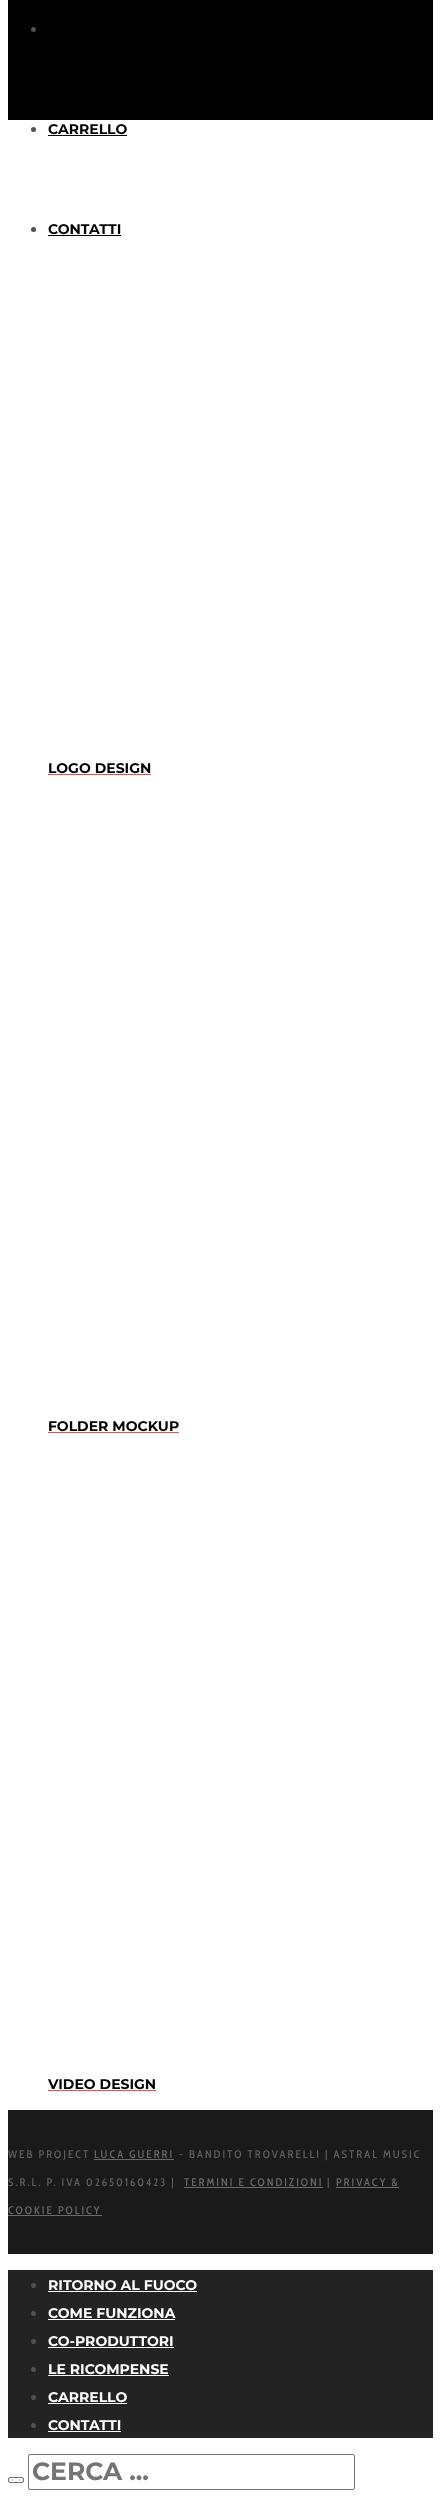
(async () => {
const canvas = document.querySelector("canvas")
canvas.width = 441
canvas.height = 2506
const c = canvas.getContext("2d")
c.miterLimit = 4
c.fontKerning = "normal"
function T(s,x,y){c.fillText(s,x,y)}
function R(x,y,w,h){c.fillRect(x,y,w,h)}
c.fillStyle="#fff"
R(0,0,441,2506)
c.fillStyle="#000"
R(8,0,425,120)
c.fillStyle="#515151"
c.beginPath()
c.arc(33.5,29.5,2.5,0,7)
c.fill()
c.beginPath()
c.arc(33.5,129.5,2.5,0,7)
c.fill()
c.font="100 14px Montserrat"
c.fillStyle="#000"
T("CARRELLO",48,134)
R(48,135,79,1)
c.fillStyle="#515151"
c.beginPath()
c.arc(33.5,229.5,2.5,0,7)
c.fill()
c.fillStyle="#000"
T("CONTATTI",48,234)
R(48,235,73,1)
T("LOGO DESIGN",48,773)
c.fillStyle="#fa4949"
R(48,774,103,1)
c.fillStyle="#000"
T("FOLDER MOCKUP",48,1431)
c.fillStyle="#fa4949"
R(48,1432,131,1)
c.fillStyle="#000"
T("VIDEO DESIGN",48,2089)
c.fillStyle="#fa4949"
R(48,2090,108,1)
c.fillStyle="#1a1a1a"
R(8,2110,425,144)
c.letterSpacing="2px"
c.font="500 11px Cabin Condensed"
c.fillStyle="#5f5f5f"
T("WEB PROJECT",8,2158)
c.fillStyle="#696969"
T("LUCA GUERRI",94,2158)
R(94,2159,80,1)
c.fillStyle="#5f5f5f"
T("- BANDITO TROVARELLI | ASTRAL MUSIC",179,2158)
T("S.R.L. P. IVA 02650160423 |",8,2186)
c.fillStyle="#696969"
T("TERMINI E CONDIZIONI",184,2186)
R(184,2187,139,1)
c.fillStyle="#5f5f5f"
T("|",327,2186)
c.fillStyle="#696969"
T("PRIVACY &",336,2186)
R(336,2187,63,1)
T("COOKIE POLICY",8,2214)
R(8,2215,94,1)
c.fillStyle="#232323"
R(8,2270,425,168)
c.fillStyle="#515151"
c.beginPath()
c.arc(33.5,2285.5,2.5,0,7)
c.fill()
c.letterSpacing="0px"
c.font="100 14px Montserrat"
c.fillStyle="#fff"
T("RITORNO AL FUOCO",48,2290)
R(48,2291,149,1)
c.fillStyle="#515151"
c.beginPath()
c.arc(33.5,2313.5,2.5,0,7)
c.fill()
c.fillStyle="#fff"
T("COME FUNZIONA",48,2318)
R(48,2319,127,1)
c.fillStyle="#515151"
c.beginPath()
c.arc(33.5,2341.5,2.5,0,7)
c.fill()
c.fillStyle="#fff"
T("CO-PRODUTTORI",48,2346)
R(48,2347,126,1)
c.fillStyle="#515151"
c.beginPath()
c.arc(33.5,2369.5,2.5,0,7)
c.fill()
c.fillStyle="#fff"
T("LE RICOMPENSE",48,2374)
R(48,2375,121,1)
c.fillStyle="#515151"
c.beginPath()
c.arc(33.5,2397.5,2.5,0,7)
c.fill()
c.fillStyle="#fff"
T("CARRELLO",48,2402)
R(48,2403,79,1)
c.fillStyle="#515151"
c.beginPath()
c.arc(33.5,2425.5,2.5,0,7)
c.fill()
c.fillStyle="#fff"
T("CONTATTI",48,2430)
R(48,2431,73,1)
c.fillStyle="#efefef"
c.beginPath()
c.roundRect(8.5,2477.5,15,5,1.5)
c.fill()
c.strokeStyle="#767676"
c.stroke()
c.beginPath()
c.roundRect(28.5,2454.5,326,35,1.5)
c.stroke()
c.font="100 25px Montserrat"
c.fillStyle="#757575"
T("CERCA ...",32,2480)
})()
